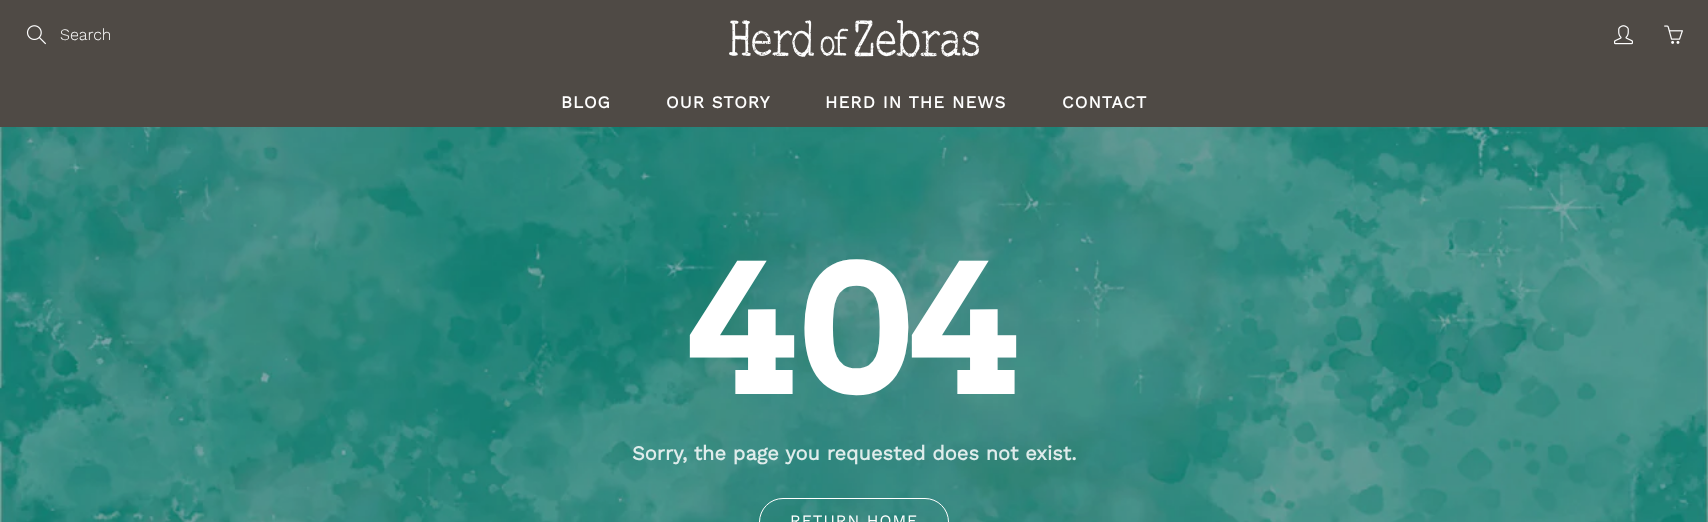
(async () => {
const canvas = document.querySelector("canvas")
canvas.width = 1708
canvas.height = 522
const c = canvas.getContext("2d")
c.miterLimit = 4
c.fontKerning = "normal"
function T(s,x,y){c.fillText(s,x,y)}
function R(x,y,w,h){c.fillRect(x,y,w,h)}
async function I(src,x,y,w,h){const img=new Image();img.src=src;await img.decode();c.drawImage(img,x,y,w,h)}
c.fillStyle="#fff"
R(0,0,1708,522)
c.fillStyle="#4f4a45"
R(0,0,1708,127)
await I("1.png",26,25,20,20)
c.font="300 16px Work Sans"
c.fillStyle="#fff"
T("Search",60,40)
await I("2.png",729,20,250,37)
await I("3.png",1614,25,19,20)
await I("4.png",1664,25,19,19)
c.letterSpacing="1px"
c.font="bold 17px Work Sans"
T("BLOG",561,108)
T("OUR STORY",666,108)
T("HERD IN THE NEWS",825,108)
T("CONTACT",1062,108)
await I("5.png",0,127,1708,395)
c.letterSpacing="0px"
c.font="bold 180px Arvo"
T("404",689,394)
c.font="bold 20px Work Sans"
c.fillStyle="#dfeceb"
T("Sorry, the page you requested does not exist.",632,460)
c.beginPath()
c.roundRect(759.5,498.5,189,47,23.5)
c.strokeStyle="#fff"
c.stroke()
c.letterSpacing="1px"
c.font="16px Work Sans"
c.fillStyle="#fff"
T("RETURN HOME",790,526)
})()
